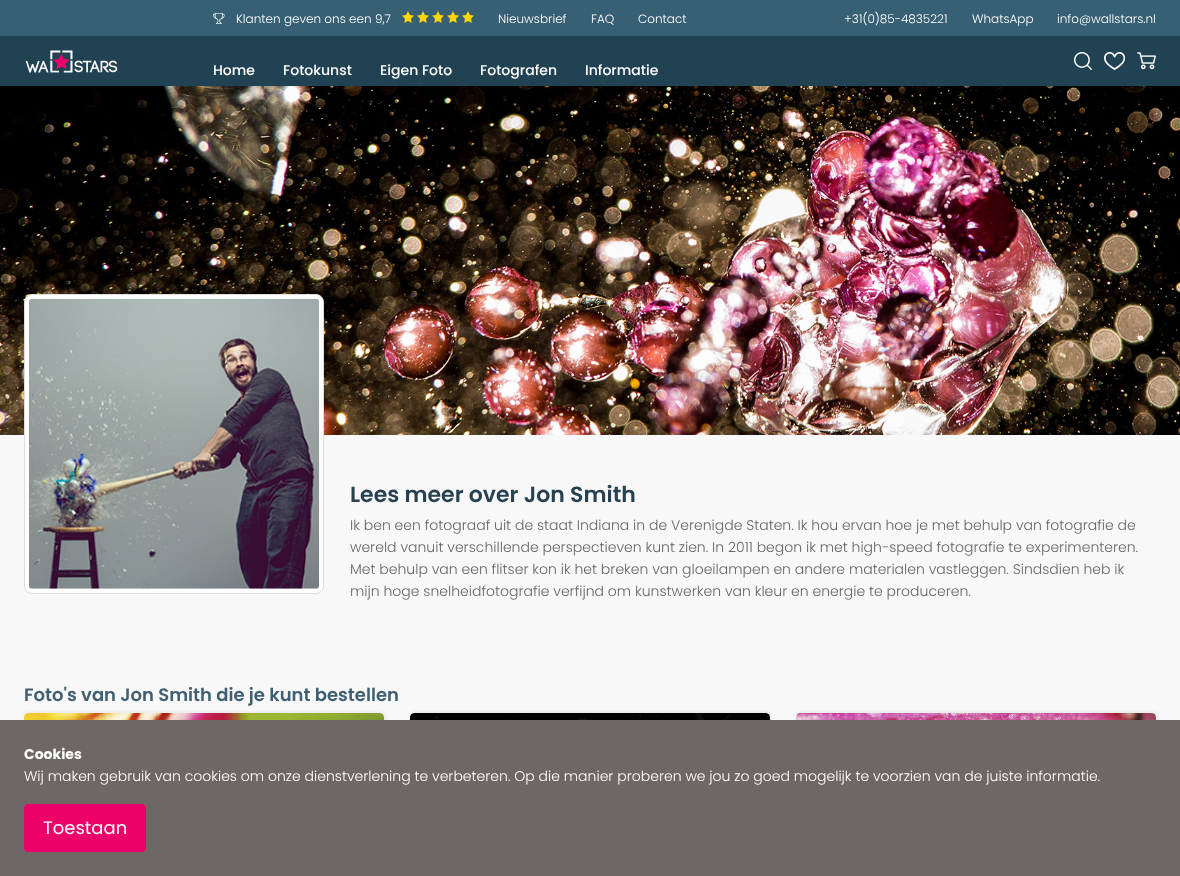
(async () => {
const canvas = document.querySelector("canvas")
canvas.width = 1180
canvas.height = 876
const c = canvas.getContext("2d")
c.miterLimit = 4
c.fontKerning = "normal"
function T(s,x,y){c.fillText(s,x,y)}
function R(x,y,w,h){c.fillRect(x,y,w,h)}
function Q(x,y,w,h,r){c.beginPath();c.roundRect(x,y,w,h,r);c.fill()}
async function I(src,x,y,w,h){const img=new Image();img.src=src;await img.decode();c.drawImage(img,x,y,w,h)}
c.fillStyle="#f8f8f8"
R(0,0,1180,876)
c.fillStyle="#376074"
R(0,0,1180,36)
await I("1.png",213,13,12,11)
c.font="300 12px Poppins"
c.fillStyle="#fff"
T("Klanten geven ons een 9,7",236,23)
await I("2.png",402,11,12,12)
await I("2.png",417,11,12,12)
await I("2.png",432,11,12,12)
await I("2.png",447,11,12,12)
await I("2.png",462,11,12,12)
T("Nieuwsbrief",498,23)
T("FAQ",591,23)
T("Contact",638,23)
T("+31(0)85-4835221",844,23)
T("WhatsApp",972,23)
T("info@wallstars.nl",1057,23)
c.fillStyle="#214252"
R(0,36,1180,50)
await I("3.png",25,50,93,23)
await I("4.png",1074,52,18,18)
await I("5.png",1104,52,21,18)
await I("6.png",1137,52,19,18)
c.font="500 14px Poppins"
c.fillStyle="#fff"
T("Home",213,75)
T("Fotokunst",283,75)
T("Eigen Foto",380,75)
T("Fotografen",480,75)
T("Informatie",585,75)
await I("7.png",0,86,1180,349)
c.beginPath()
c.roundRect(24.5,294.5,299,299,7.5)
c.fill()
c.strokeStyle="#ddd"
c.stroke()
await I("8.png",29,298,290,291)
c.font="600 22px Poppins"
c.fillStyle="#284150"
T("Lees meer over Jon Smith",350,502)
c.font="300 14px Poppins"
c.fillStyle="#666"
T("Ik ben een fotograaf uit de staat Indiana in de Verenigde Staten. Ik hou ervan hoe je met behulp van fotografie de",350,530)
T("wereld vanuit verschillende perspectieven kunt zien. In 2011 begon ik met high-speed fotografie te experimenteren.",350,552)
T("Met behulp van een flitser kon ik het breken van gloeilampen en andere materialen vastleggen. Sindsdien heb ik",350,574)
T("mijn hoge snelheidfotografie verfijnd om kunstwerken van kleur en energie te produceren.",350,596)
c.font="600 18px Poppins"
c.fillStyle="#405f72"
T("Foto's van Jon Smith die je kunt bestellen",24,701)
c.fillStyle="#0000001a"
c.filter="blur(2px)"
c.beginPath()
c.roundRect(25,713,360,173,4)
c.fill()
c.filter="none"
c.fillStyle="#f4f4f4"
Q(24,713,360,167,4)
await I("9.png",24,713,360,7)
c.fillStyle="#0000001a"
c.filter="blur(2px)"
c.beginPath()
c.roundRect(411,713,360,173,4)
c.fill()
c.filter="none"
c.fillStyle="#f4f4f4"
Q(410,713,360,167,4)
await I("10.png",410,713,360,7)
c.fillStyle="#0000001a"
c.filter="blur(2px)"
c.beginPath()
c.roundRect(797,713,360,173,4)
c.fill()
c.filter="none"
c.fillStyle="#f4f4f4"
Q(796,713,360,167,4)
await I("11.png",796,713,360,7)
c.fillStyle="#6f6765"
R(0,720,1180,156)
c.font="bold 14px Poppins"
c.fillStyle="#fff"
T("Cookies",24,759)
c.font="300 14px Poppins"
T("Wij maken gebruik van cookies om onze dienstverlening te verbeteren. Op die manier proberen we jou zo goed mogelijk te voorzien van de juiste informatie.",24,781)
c.fillStyle="#ec006a"
c.beginPath()
c.roundRect(24.5,804.5,121,47,3.5)
c.fill()
c.strokeStyle="#ec006a"
c.stroke()
c.font="18px Poppins"
c.fillStyle="#fff"
T("Toestaan",43,834)
})()
